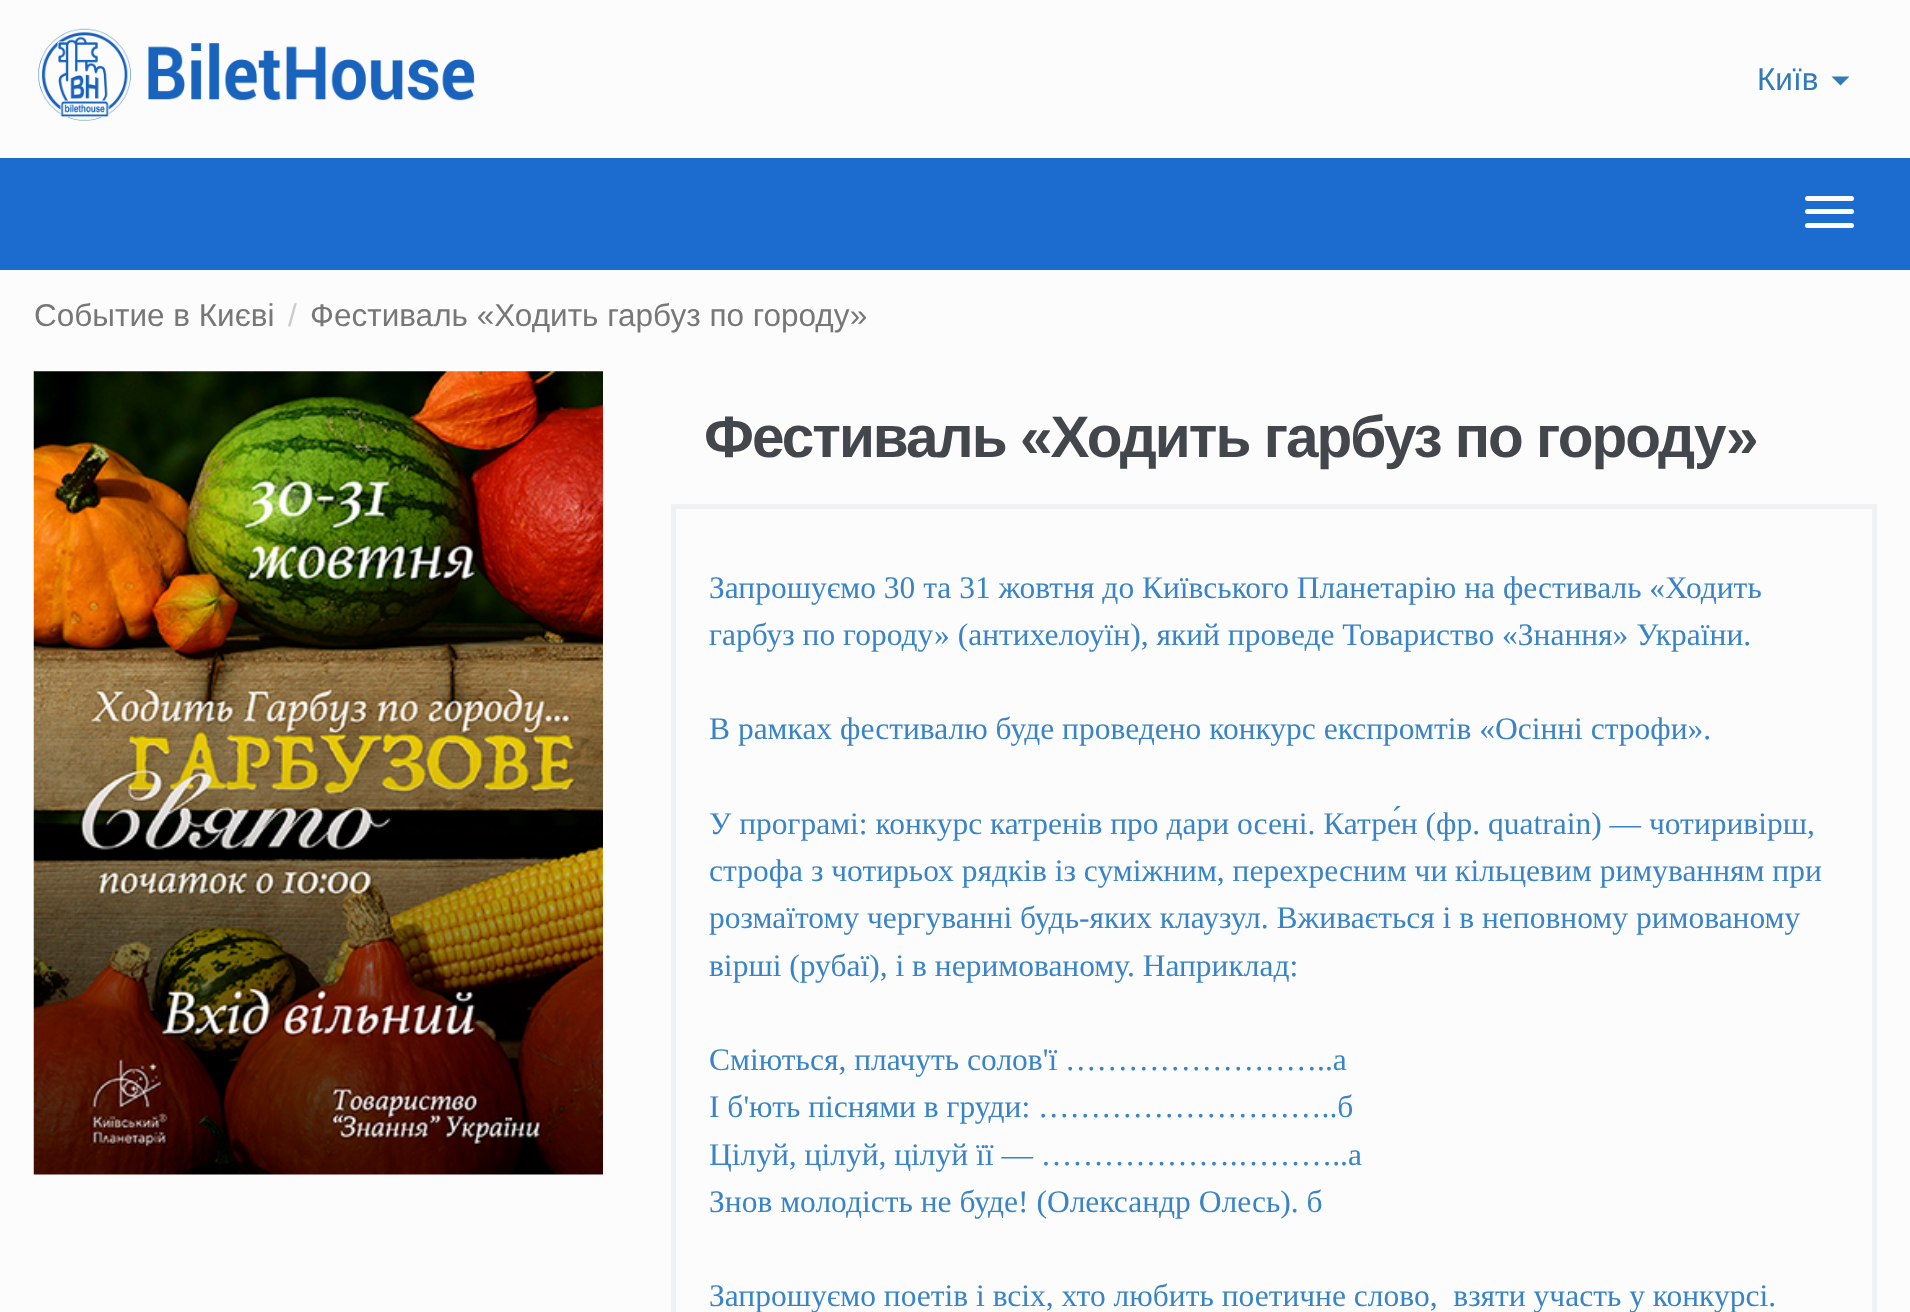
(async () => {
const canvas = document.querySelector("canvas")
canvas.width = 1910
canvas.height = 1312
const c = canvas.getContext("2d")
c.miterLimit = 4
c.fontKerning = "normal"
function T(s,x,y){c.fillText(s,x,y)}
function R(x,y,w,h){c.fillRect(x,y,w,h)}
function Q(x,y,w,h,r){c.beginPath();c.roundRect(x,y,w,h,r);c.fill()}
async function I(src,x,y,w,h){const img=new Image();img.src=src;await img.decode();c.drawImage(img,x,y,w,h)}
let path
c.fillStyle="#fcfcfd"
R(0,0,1910,1312)
await I("1.png",38,28,437,93)
c.font="31.5px Liberation Sans"
c.fillStyle="#337ab7"
T("Київ",1757,90)
path = new Path2D("M1831.5 76.5h18l-9 9z")
c.fill(path)
c.fillStyle="#1b6cce"
R(0,158,1910,112)
c.fillStyle="#fcfcfd"
Q(1805,196,49,5,2.5)
Q(1805,209,49,5,2.5)
Q(1805,223,49,5,2.5)
c.fillStyle="#777"
T("Cобытие в Києві",34,326)
c.fillStyle="#ccc"
T("/",288,326)
c.fillStyle="#777"
T("Фестиваль «Ходить гарбуз по городу»",310,326)
await I("2.png",33,371,570,804)
c.letterSpacing="-2px"
c.font="bold 58.5px Liberation Sans"
c.fillStyle="#43474c"
T("Фестиваль «Ходить гарбуз по городу»",704,457)
c.strokeStyle="#f0f1f2"
c.lineWidth=5
c.strokeRect(673.5,506.5,1201,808)
c.letterSpacing="0px"
c.font="31.5px Liberation Serif"
c.fillStyle="#3984c6"
T("Запрошуємо 30 та 31 жовтня до Київського Планетарію на фестиваль «Ходить",709,598)
T("гарбуз по городу» (антихелоуїн), який проведе Товариство «Знання» України.",709,645)
T("В рамках фестивалю буде проведено конкурс експромтів «Осінні строфи».",709,739)
T("У програмі: конкурс катренів про дари осені. Катре́н (фр. quatrain) — чотиривірш,",709,834)
T("строфа з чотирьох рядків із суміжним, перехресним чи кільцевим римуванням при",709,881)
T("розмаїтому чергуванні будь-яких клаузул. Вживається і в неповному римованому",709,928)
T("вірші (рубаї), і в неримованому. Наприклад:",709,976)
T("Сміються, плачуть солов'ї ……………………..а",709,1070)
T("І б'ють піснями в груди: ………………………..б",709,1117)
T("Цілуй, цілуй, цілуй її — ……………….………..а",709,1165)
T("Знов молодість не буде! (Олександр Олесь). б",709,1212)
T("Запрошуємо поетів і всіх, хто любить поетичне слово,  взяти участь у конкурсі.",709,1306)
})()
